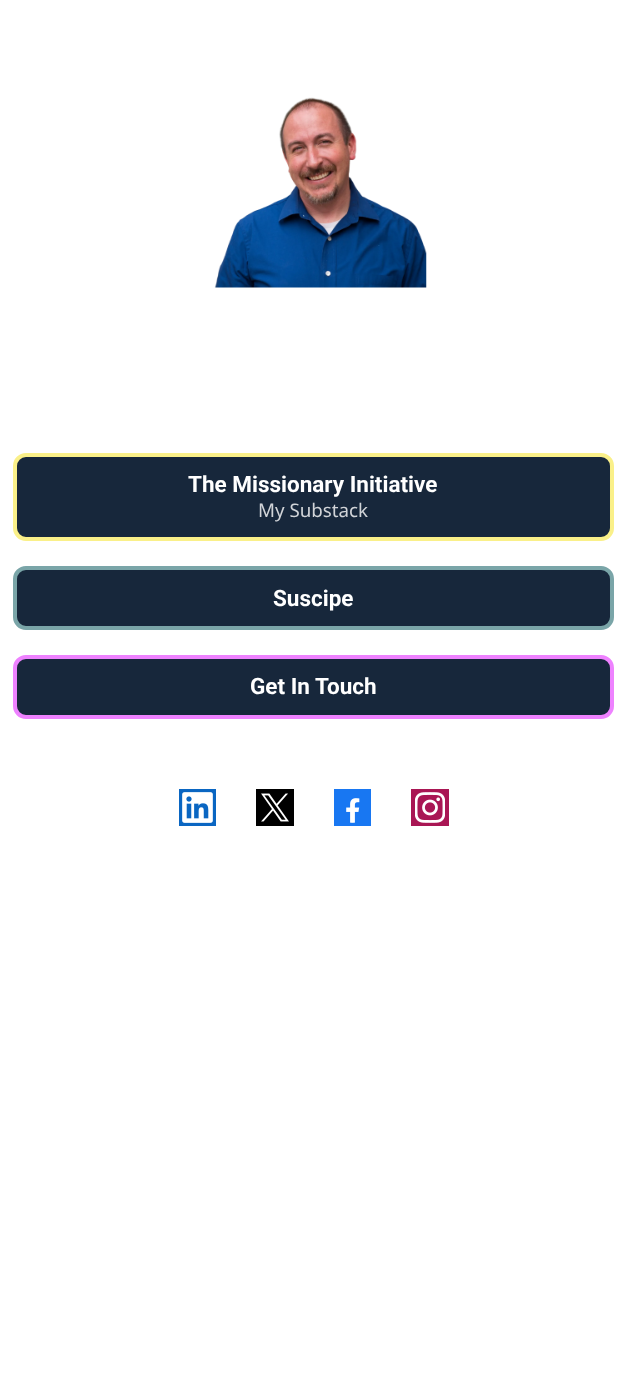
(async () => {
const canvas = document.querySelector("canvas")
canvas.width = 626
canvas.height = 1381
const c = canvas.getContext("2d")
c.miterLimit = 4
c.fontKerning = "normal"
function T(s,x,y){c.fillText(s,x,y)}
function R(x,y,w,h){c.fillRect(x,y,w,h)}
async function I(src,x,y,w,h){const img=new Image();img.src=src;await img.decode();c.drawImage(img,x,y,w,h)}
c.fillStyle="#fff"
R(0,0,626,1381)
await I("1.png",214,97,213,191)
c.fillStyle="#17273b"
c.beginPath()
c.roundRect(15,455,597,84,11)
c.fill()
c.strokeStyle="#faf089"
c.lineWidth=4
c.stroke()
c.font="bold 22.5px Roboto"
c.fillStyle="#fff"
T("The Missionary Initiative",188,492)
c.font="18.75px Noto Sans"
c.fillStyle="#d1d4d8"
T("My Substack",258,517)
c.fillStyle="#17273b"
c.beginPath()
c.roundRect(15,568,597,60,11)
c.fill()
c.strokeStyle="#7aa5a8"
c.stroke()
c.font="bold 22.5px Roboto"
c.fillStyle="#fff"
T("Suscipe",273,606)
c.fillStyle="#17273b"
c.beginPath()
c.roundRect(15,657,597,60,11)
c.fill()
c.strokeStyle="#ee82ff"
c.stroke()
c.fillStyle="#fff"
T("Get In Touch",250,694)
await I("2.png",179,789,37,37)
await I("3.png",256,789,38,37)
await I("4.png",334,789,37,37)
await I("5.png",411,789,38,37)
})()
